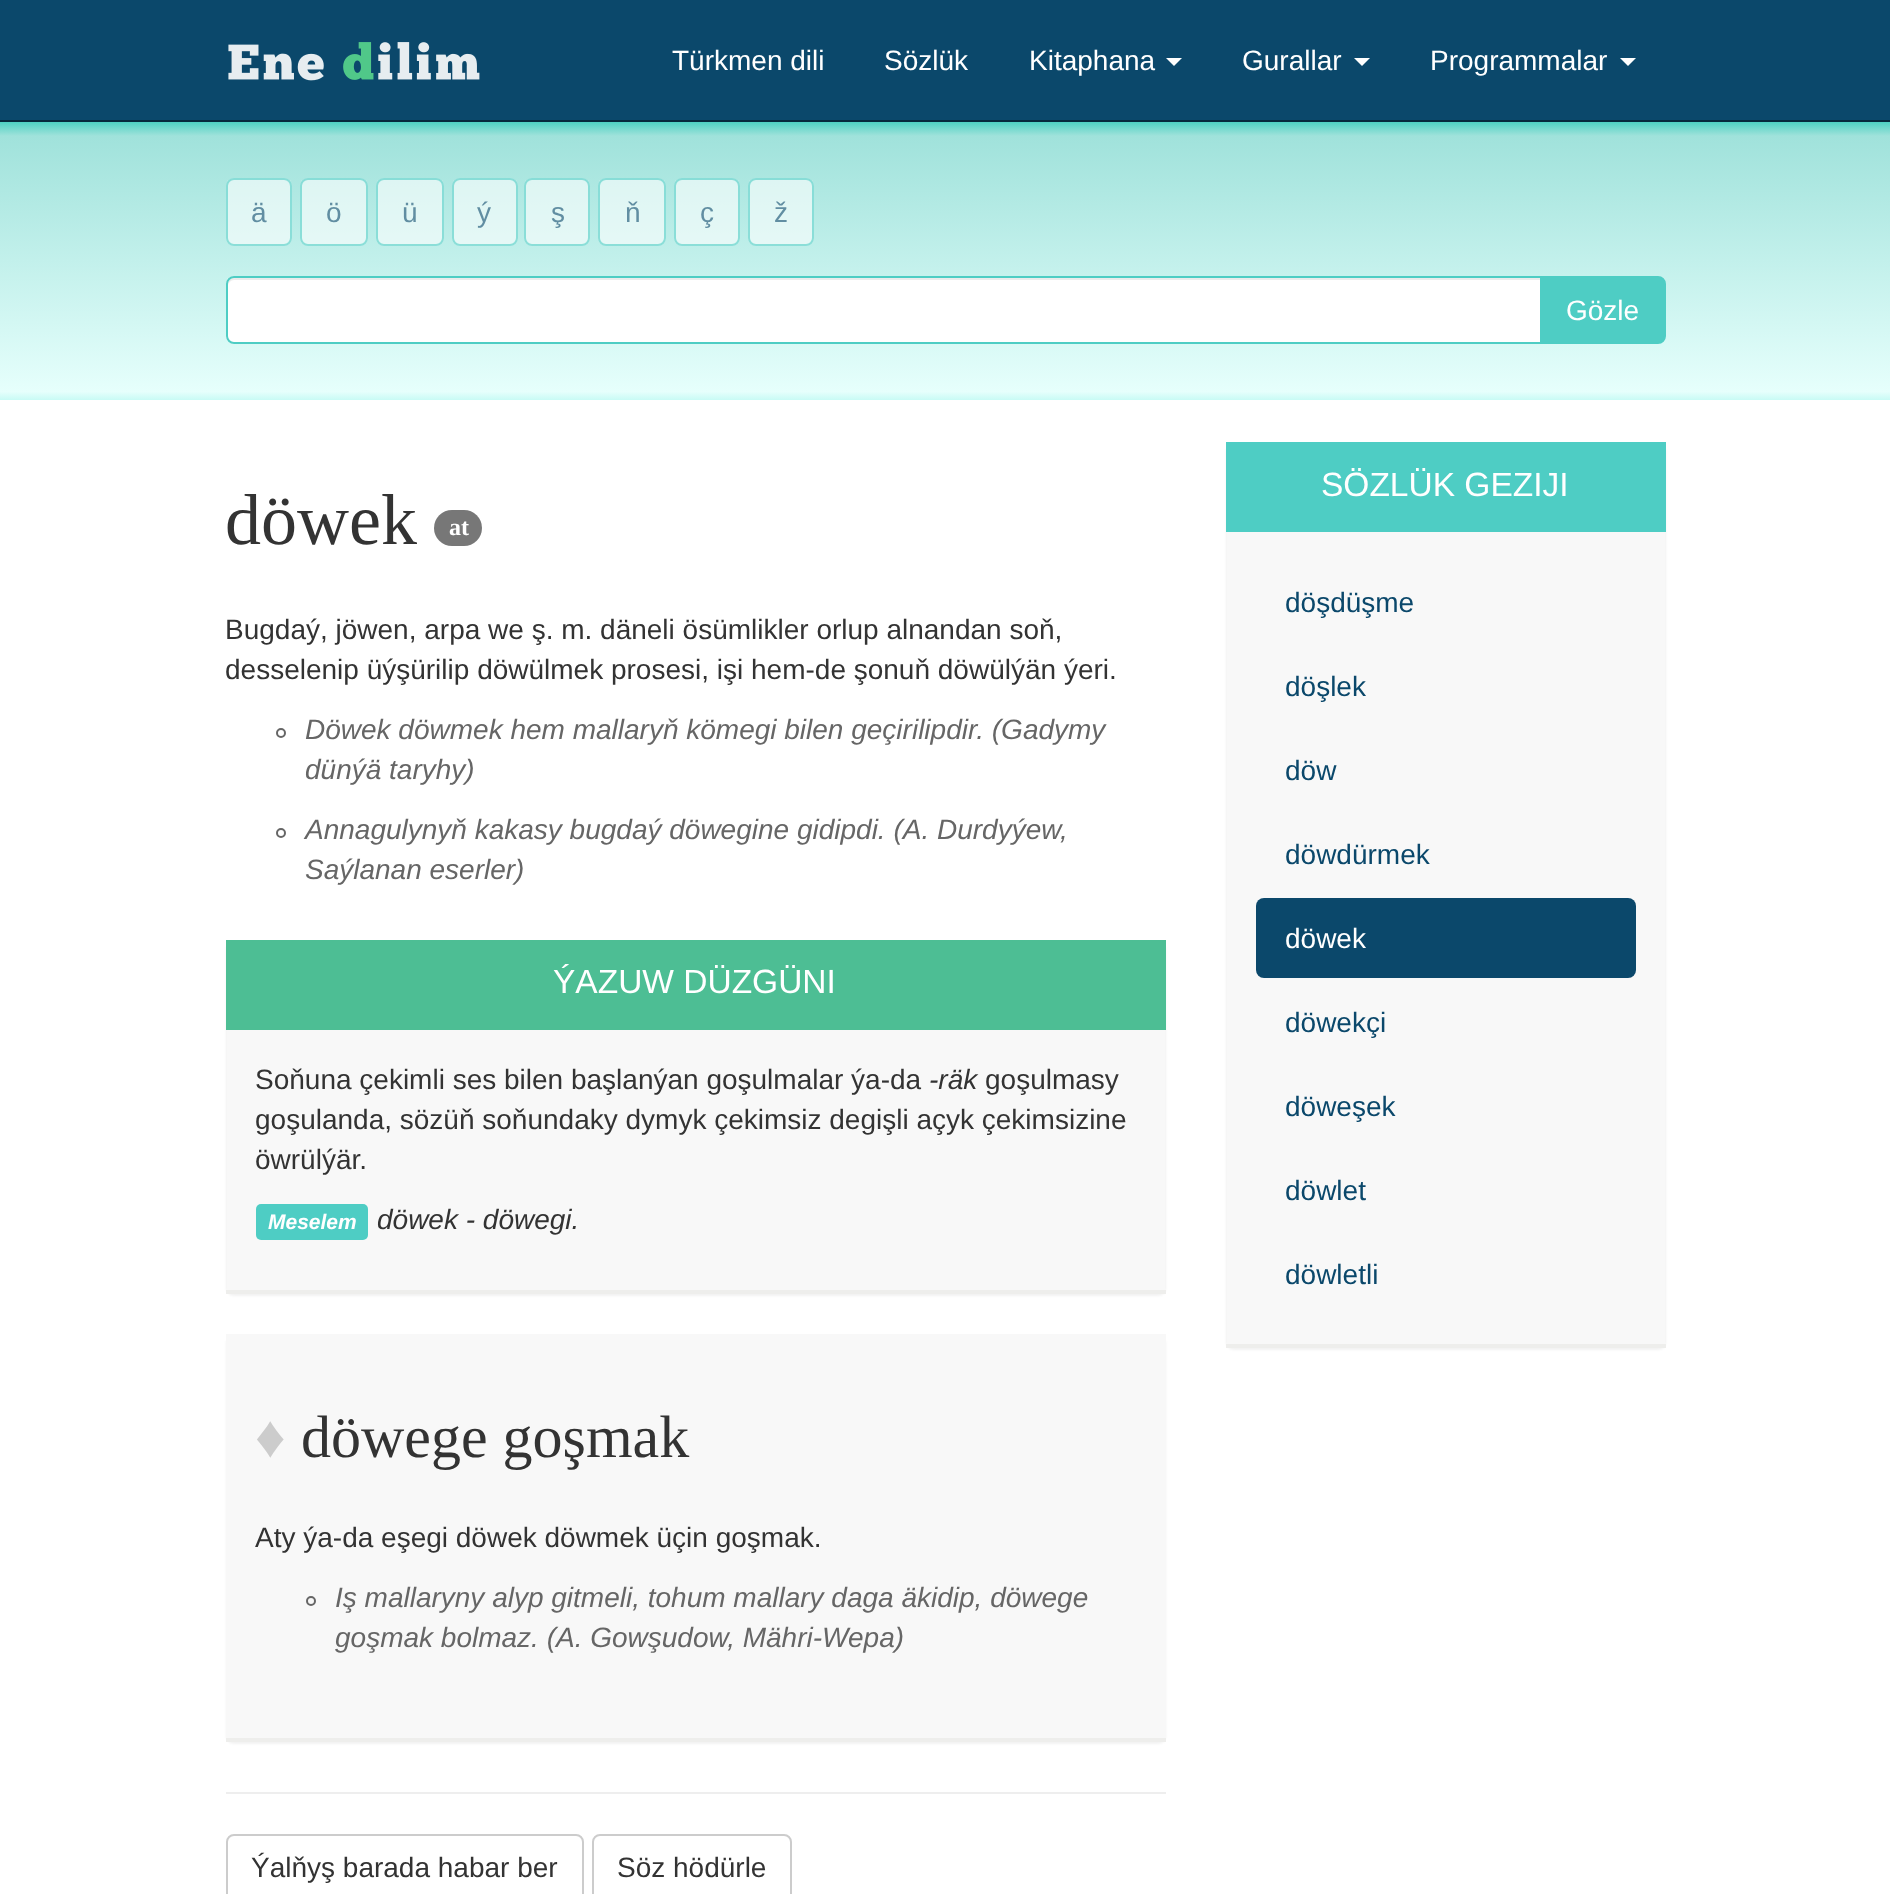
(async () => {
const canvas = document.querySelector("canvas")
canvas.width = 1890
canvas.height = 1894
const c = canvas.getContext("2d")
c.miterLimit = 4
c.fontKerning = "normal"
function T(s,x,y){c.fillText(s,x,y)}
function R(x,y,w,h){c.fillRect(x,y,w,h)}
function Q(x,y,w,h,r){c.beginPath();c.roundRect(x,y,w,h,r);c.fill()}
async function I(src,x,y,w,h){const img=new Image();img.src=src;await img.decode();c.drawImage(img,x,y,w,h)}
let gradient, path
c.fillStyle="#fff"
R(0,0,1890,1894)
c.fillStyle="#0b486b"
R(0,0,1890,120)
c.fillStyle="#06293d"
R(0,120,1890,2)
await I("1.png",228,42,252,39)
c.font="28px Liberation Sans"
c.fillStyle="#fff"
T("Türkmen dili",672,70)
T("Sözlük",884,70)
T("Kitaphana",1029,70)
path = new Path2D("M1166 58h16l-8 8z")
c.fill(path)
T("Gurallar",1242,70)
path = new Path2D("M1354 58h16l-8 8z")
c.fill(path)
T("Programmalar",1430,70)
path = new Path2D("M1620 58h16l-8 8z")
c.fill(path)
gradient = c.createLinearGradient(945,122,945,400)
gradient.addColorStop(0,"#4ed1c2")
gradient.addColorStop(.05,"#a0e2db")
gradient.addColorStop(.97,"#e6fffc")
gradient.addColorStop(1,"#c8fbf5")
c.fillStyle = gradient
R(0,122,1890,278)
c.fillStyle="#ffffff99"
Q(226,178,66,68,8)
c.beginPath()
c.roundRect(227,179,64,66,7)
c.strokeStyle="#4ecdc499"
c.lineWidth=2
c.stroke()
c.fillStyle="#618ea2"
T("ä",251,222)
c.fillStyle="#ffffff99"
Q(300,178,68,68,8)
c.beginPath()
c.roundRect(301,179,66,66,7)
c.stroke()
c.fillStyle="#618ea2"
T("ö",326,222)
c.fillStyle="#ffffff99"
Q(376,178,68,68,8)
c.beginPath()
c.roundRect(377,179,66,66,7)
c.stroke()
c.fillStyle="#618ea2"
T("ü",402,222)
c.fillStyle="#ffffff99"
Q(452,178,66,68,8)
c.beginPath()
c.roundRect(453,179,64,66,7)
c.stroke()
c.fillStyle="#618ea2"
T("ý",477,222)
c.fillStyle="#ffffff99"
Q(524,178,66,68,8)
c.beginPath()
c.roundRect(525,179,64,66,7)
c.stroke()
c.fillStyle="#618ea2"
T("ş",551,222)
c.fillStyle="#ffffff99"
Q(598,178,68,68,8)
c.beginPath()
c.roundRect(599,179,66,66,7)
c.stroke()
c.fillStyle="#618ea2"
T("ň",625,222)
c.fillStyle="#ffffff99"
Q(674,178,66,68,8)
c.beginPath()
c.roundRect(675,179,64,66,7)
c.stroke()
c.fillStyle="#618ea2"
T("ç",700,222)
c.fillStyle="#ffffff99"
Q(748,178,66,68,8)
c.beginPath()
c.roundRect(749,179,64,66,7)
c.stroke()
c.fillStyle="#618ea2"
T("ž",774,222)
c.fillStyle="#fff"
c.beginPath()
c.roundRect(226,276,1316,68,[8,0,0,8])
c.fill()
c.fillStyle="#ececec"
path = new Path2D("M234 280h1306v-2h-1306c-5 0-6 4-6 8c0-3 3-6 6-6z")
c.fill(path)
c.beginPath()
c.roundRect(227,277,1314,66,[7,0,0,7])
c.strokeStyle="#4ecdc4"
c.stroke()
c.fillStyle="#4ecdc4"
c.beginPath()
c.roundRect(1541,277,124,66,[0,7,7,0])
c.fill()
c.stroke()
c.fillStyle="#fff"
T("Gözle",1566,320)
c.font="72px Liberation Serif"
c.fillStyle="#333"
T("döwek",225,544)
c.fillStyle="#777"
Q(434,510,48,36,18)
c.font="bold 24px Liberation Serif"
c.fillStyle="#fff"
T("at",449,535)
c.font="28px Liberation Sans"
c.fillStyle="#333"
T("Bugdaý, jöwen, arpa we ş. m. däneli ösümlikler orlup alnandan soň,",225,639)
T("desselenip üýşürilip döwülmek prosesi, işi hem-de şonuň döwülýän ýeri.",225,679)
c.beginPath()
c.arc(281,733,4,0,7)
c.strokeStyle="#666"
c.stroke()
c.font="italic 28px Liberation Sans"
c.fillStyle="#666"
T("Döwek döwmek hem mallaryň kömegi bilen geçirilipdir. (Gadymy",305,739)
T("dünýä taryhy)",305,779)
c.beginPath()
c.arc(281,833,4,0,7)
c.stroke()
T("Annagulynyň kakasy bugdaý döwegine gidipdi. (A. Durdyýew,",305,839)
T("Saýlanan eserler)",305,879)
c.fillStyle="#0000000d"
c.filter="blur(1px)"
c.beginPath()
c.roundRect(226,942,940,354,8)
c.fill()
c.filter="none"
c.fillStyle="#4dbe94"
R(226,940,940,90)
c.font="33.5px Liberation Sans"
c.fillStyle="#fff"
T("ÝAZUW DÜZGÜNI",553,993)
c.fillStyle="#f8f8f8"
R(227,1030,938,260)
c.fillStyle="#eeeeec"
R(226,1290,940,4)
c.font="28px Liberation Sans"
c.fillStyle="#333"
T("Soňuna çekimli ses bilen başlanýan goşulmalar ýa-da",255,1089)
c.font="italic 28px Liberation Sans"
T("-räk",929,1089)
c.font="28px Liberation Sans"
T("goşulmasy",985,1089)
T("goşulanda, sözüň soňundaky dymyk çekimsiz degişli açyk çekimsizine",255,1129)
T("öwrülýär.",255,1169)
c.fillStyle="#4ecdc4"
Q(256,1204,112,36,5)
c.font="italic bold 21px Liberation Sans"
c.fillStyle="#fff"
T("Meselem",268,1229)
c.font="italic 28px Liberation Sans"
c.fillStyle="#333"
T("döwek - döwegi.",377,1229)
c.fillStyle="#0000000d"
c.filter="blur(1px)"
c.beginPath()
c.roundRect(226,1336,940,408,8)
c.fill()
c.filter="none"
c.fillStyle="#f8f8f8"
R(226,1334,940,404)
c.fillStyle="#eeeeec"
R(226,1738,940,4)
c.font="60px Liberation Serif"
c.fillStyle="#ccc"
T("♦",255,1457)
c.fillStyle="#333"
T("döwege goşmak",301,1457)
c.font="28px Liberation Sans"
T("Aty ýa-da eşegi döwek döwmek üçin goşmak.",255,1547)
c.beginPath()
c.arc(311,1601,4,0,7)
c.stroke()
c.font="italic 28px Liberation Sans"
c.fillStyle="#666"
T("Iş mallaryny alyp gitmeli, tohum mallary daga äkidip, döwege",335,1607)
T("goşmak bolmaz. (A. Gowşudow, Mähri-Wepa)",335,1647)
c.fillStyle="#eee"
R(226,1792,940,2)
c.beginPath()
c.roundRect(227,1835,356,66,7)
c.strokeStyle="#ccc"
c.stroke()
c.font="28px Liberation Sans"
c.fillStyle="#333"
T("Ýalňyş barada habar ber",251,1877)
c.beginPath()
c.roundRect(593,1835,198,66,7)
c.stroke()
T("Söz hödürle",617,1877)
c.fillStyle="#0000000d"
c.filter="blur(1px)"
c.beginPath()
c.roundRect(1226,444,440,906,8)
c.fill()
c.filter="none"
c.fillStyle="#4ecdc4"
R(1226,442,440,90)
c.font="33.5px Liberation Sans"
c.fillStyle="#fff"
T("SÖZLÜK GEZIJI",1321,496)
c.fillStyle="#f8f8f8"
R(1227,532,438,812)
c.fillStyle="#eeeeec"
R(1226,1344,440,4)
c.font="28px Liberation Sans"
c.fillStyle="#0b486b"
T("döşdüşme",1285,612)
T("döşlek",1285,696)
T("döw",1285,780)
T("döwdürmek",1285,864)
Q(1256,898,380,80,8)
c.fillStyle="#fff"
T("döwek",1285,948)
c.fillStyle="#0b486b"
T("döwekçi",1285,1032)
T("döweşek",1285,1116)
T("döwlet",1285,1200)
T("döwletli",1285,1284)
})()
